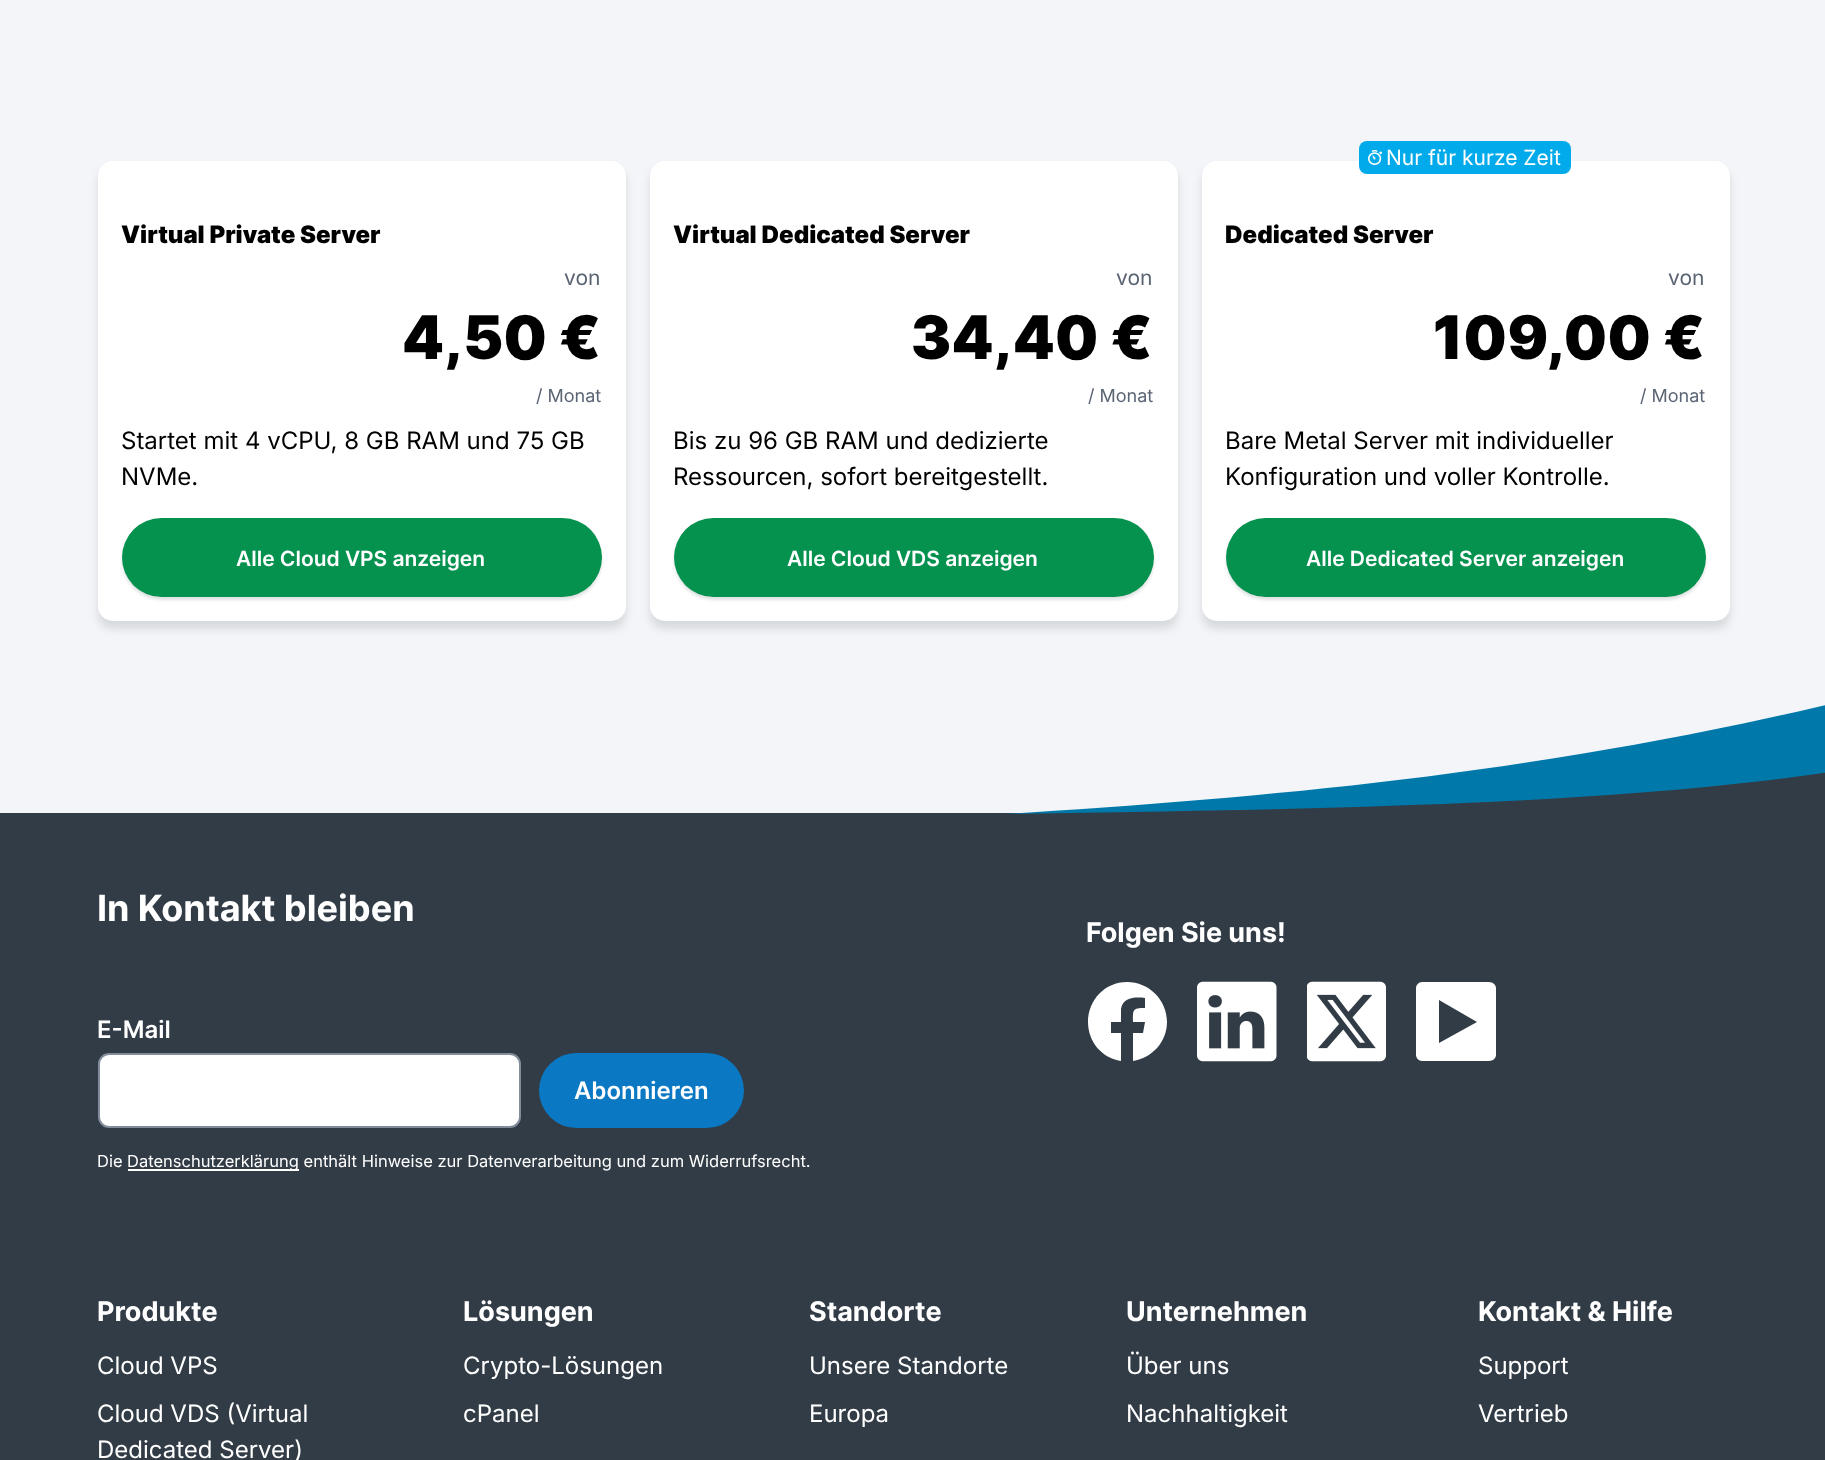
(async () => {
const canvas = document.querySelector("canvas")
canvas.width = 1825
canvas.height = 1460
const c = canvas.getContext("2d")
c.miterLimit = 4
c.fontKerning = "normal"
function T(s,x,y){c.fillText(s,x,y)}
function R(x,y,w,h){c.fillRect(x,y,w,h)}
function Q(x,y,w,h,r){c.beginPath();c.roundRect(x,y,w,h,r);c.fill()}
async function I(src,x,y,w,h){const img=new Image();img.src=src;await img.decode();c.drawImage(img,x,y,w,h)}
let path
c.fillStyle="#f4f5f8"
R(0,0,1825,1460)
c.fillStyle="#323c4626"
c.filter="blur(4px)"
c.beginPath()
c.roundRect(98,168,528,461,15)
c.fill()
c.filter="none"
c.fillStyle="#fff"
Q(98,161,528,460,15)
c.font="900 24px Inter"
c.fillStyle="#000"
T("Virtual Private Server",121,243)
c.font="21px Inter"
c.fillStyle="#5a6473"
T("von",564,285)
c.font="900 60px Inter"
c.fillStyle="#000"
T("4,50 €",402,359)
c.font="18px Inter"
c.fillStyle="#5a6473"
T("/ Monat",536,402)
c.font="24px Inter"
c.fillStyle="#000"
T("Startet mit 4 vCPU, 8 GB RAM und 75 GB",121,449)
T("NVMe.",121,485)
c.fillStyle="#323c4626"
c.filter="blur(1.5px)"
c.beginPath()
c.roundRect(122,521,480,79,39.5)
c.fill()
c.filter="none"
c.fillStyle="#05924f"
Q(122,518,480,79,39.5)
c.font="600 21px Inter"
c.fillStyle="#fff"
T("Alle Cloud VPS anzeigen",236,566)
c.fillStyle="#323c4626"
c.filter="blur(4px)"
c.beginPath()
c.roundRect(650,168,528,461,15)
c.fill()
c.filter="none"
c.fillStyle="#fff"
Q(650,161,528,460,15)
c.font="900 24px Inter"
c.fillStyle="#000"
T("Virtual Dedicated Server",673,243)
c.font="21px Inter"
c.fillStyle="#5a6473"
T("von",1116,285)
c.font="900 60px Inter"
c.fillStyle="#000"
T("34,40 €",911,359)
c.font="18px Inter"
c.fillStyle="#5a6473"
T("/ Monat",1088,402)
c.font="24px Inter"
c.fillStyle="#000"
T("Bis zu 96 GB RAM und dedizierte",673,449)
T("Ressourcen, sofort bereitgestellt.",673,485)
c.fillStyle="#323c4626"
c.filter="blur(1.5px)"
c.beginPath()
c.roundRect(674,521,480,79,39.5)
c.fill()
c.filter="none"
c.fillStyle="#05924f"
Q(674,518,480,79,39.5)
c.font="600 21px Inter"
c.fillStyle="#fff"
T("Alle Cloud VDS anzeigen",787,566)
c.fillStyle="#323c4626"
c.filter="blur(4px)"
c.beginPath()
c.roundRect(1202,168,528,461,15)
c.fill()
c.filter="none"
c.fillStyle="#fff"
Q(1202,161,528,460,15)
c.fillStyle="#00aaeb"
Q(1359,141,212,33,8)
await I("1.png",1368,150,15,15)
c.font="21px Inter"
c.fillStyle="#fff"
T("Nur für kurze Zeit",1386,165)
c.font="900 24px Inter"
c.fillStyle="#000"
T("Dedicated Server",1225,243)
c.font="21px Inter"
c.fillStyle="#5a6473"
T("von",1668,285)
c.font="900 60px Inter"
c.fillStyle="#000"
T("109,00 €",1433,359)
c.font="18px Inter"
c.fillStyle="#5a6473"
T("/ Monat",1640,402)
c.font="24px Inter"
c.fillStyle="#000"
T("Bare Metal Server mit individueller",1225,449)
T("Konfiguration und voller Kontrolle.",1225,485)
c.fillStyle="#323c4626"
c.filter="blur(1.5px)"
c.beginPath()
c.roundRect(1226,521,480,79,39.5)
c.fill()
c.filter="none"
c.fillStyle="#05924f"
Q(1226,518,480,79,39.5)
c.font="600 21px Inter"
c.fillStyle="#fff"
T("Alle Dedicated Server anzeigen",1306,566)
c.fillStyle="#323c46"
R(0,813,1825,647)
c.fillStyle="#0078aa"
path = new Path2D("M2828 814h-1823c515-33 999-85 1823-472z")
c.fill(path)
c.fillStyle="#323c46"
path = new Path2D("M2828 814h-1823c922-14 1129-28 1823-472z")
c.fill(path)
c.font="bold 36px Inter"
c.fillStyle="#fff"
T("In Kontakt bleiben",97,921)
c.font="600 24px Inter"
T("E-Mail",97,1038)
c.beginPath()
c.roundRect(99,1054,421,73,10)
c.fill()
c.strokeStyle="#828c9b"
c.lineWidth=2
c.stroke()
c.fillStyle="#0a78c3"
Q(539,1053,205,75,37.5)
c.fillStyle="#fff"
T("Abonnieren",574,1099)
c.font="16.5px Inter"
T("Die",97,1167)
R(128,1169,171,2)
T("Datenschutzerklärung enthält Hinweise zur Datenverarbeitung und zum Widerrufsrecht.",127,1167)
c.font="bold 27px Inter"
T("Folgen Sie uns!",1086,942)
path = new Path2D("M1127 982c-22 0-39 18-39 40c0 20 14 36 33 39v-28h-10v-11h10v-13c2-12 14-12 24-11v10c-13 0-12 2-12 14h12l-2 11h-10v28c19-3 34-19 34-39c0-22-18-40-40-40z")
c.fill(path)
await I("2.png",1197,981,80,81)
await I("3.png",1307,981,79,81)
path = new Path2D("M1489 982h-67c-3 0-6 3-6 6v67c0 3 3 6 6 6h67c4 0 7-3 7-6v-67c0-3-3-6-7-6zm-50 61v-43l38 22z")
c.fill(path)
T("Produkte",97,1321)
c.font="24px Inter"
T("Cloud VPS",97,1374)
T("Cloud VDS (Virtual",97,1422)
T("Dedicated Server)",97,1458)
c.font="bold 27px Inter"
T("Lösungen",463,1321)
c.font="24px Inter"
T("Crypto-Lösungen",463,1374)
T("cPanel",463,1422)
c.font="bold 27px Inter"
T("Standorte",809,1321)
c.font="24px Inter"
T("Unsere Standorte",809,1374)
T("Europa",809,1422)
c.font="bold 27px Inter"
T("Unternehmen",1126,1321)
c.font="24px Inter"
T("Über uns",1126,1374)
T("Nachhaltigkeit",1126,1422)
c.font="bold 27px Inter"
T("Kontakt & Hilfe",1478,1321)
c.font="24px Inter"
T("Support",1478,1374)
T("Vertrieb",1478,1422)
})()
